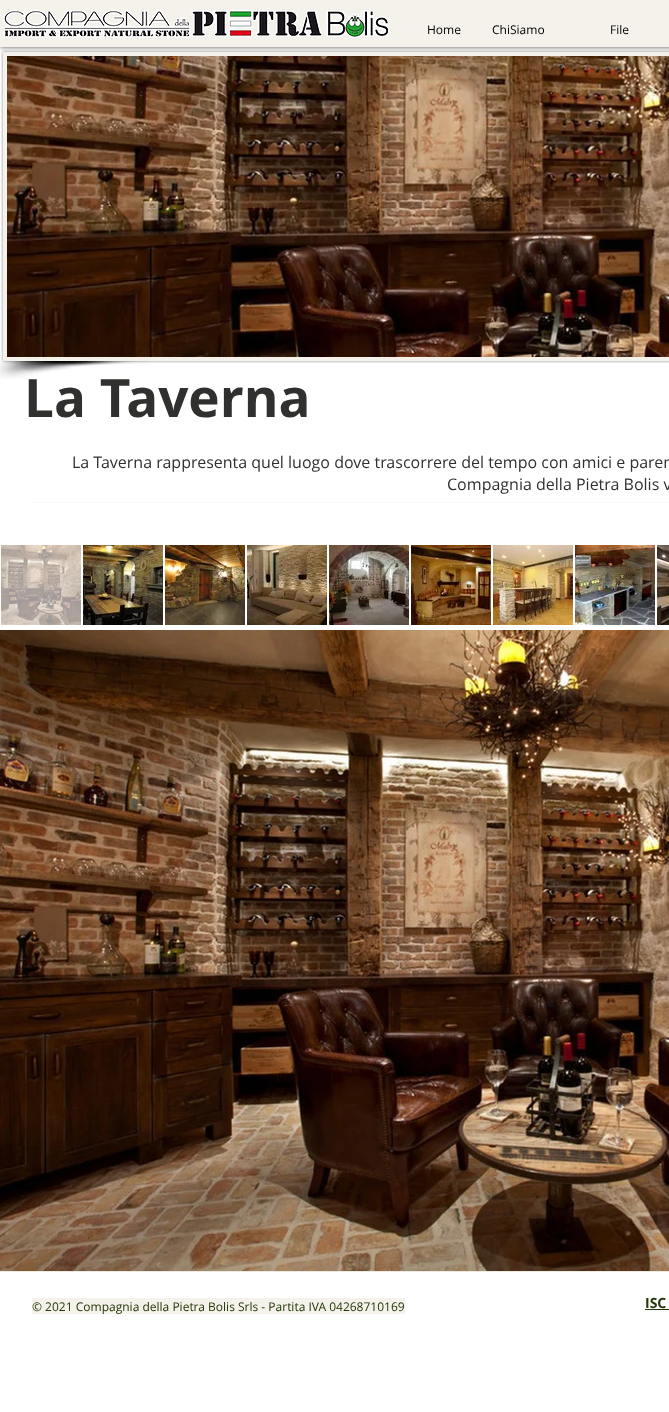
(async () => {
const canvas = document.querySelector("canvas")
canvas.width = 669
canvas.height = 1412
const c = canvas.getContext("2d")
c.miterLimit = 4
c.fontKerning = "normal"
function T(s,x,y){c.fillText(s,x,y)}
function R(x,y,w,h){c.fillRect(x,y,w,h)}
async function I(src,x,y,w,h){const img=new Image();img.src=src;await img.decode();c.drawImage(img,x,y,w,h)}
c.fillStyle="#fff"
R(0,0,669,1412)
c.fillStyle="#00000080"
c.filter="blur(1.5px)"
c.beginPath()
c.rect(3,52,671,309)
c.fill()
c.filter="none"
c.fillStyle="#f4f2eb"
R(3,52,666,309)
c.fillStyle="#000000b3"
c.filter="blur(2.5px)"
c.beginPath()
c.rect(0,0,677,47)
c.fill()
c.filter="none"
c.fillStyle="#f4f2eb"
R(0,0,669,47)
await I("1.png",3,9,387,30)
c.fillStyle="#d0ccc7"
R(8,9,1,1)
c.font="12px Open Sans"
c.fillStyle="#000"
T("Home",427,34)
T("ChiSiamo",492,34)
T("File",610,34)
await I("2.png",7,56,662,301)
await I("3.png",0,361,148,18)
c.font="bold 53px Open Sans"
c.fillStyle="#30302f"
T("La Taverna",24,417)
c.font="16px Open Sans"
T("La Taverna rappresenta quel luogo dove trascorrere del tempo con amici e paren",72,468)
T("Compagnia della Pietra Bolis v",447,490)
c.fillStyle="#fbfaf8"
R(27,502,642,1)
await I("4.png",1,545,80,80)
await I("5.png",83,545,80,80)
await I("6.png",165,545,80,80)
await I("7.png",247,545,80,80)
await I("8.png",329,545,80,80)
await I("9.png",411,545,80,80)
await I("10.png",493,545,80,80)
await I("11.png",575,545,80,80)
await I("12.png",657,545,12,80)
c.fillStyle="#ece9e0"
R(0,1271,669,1)
await I("13.png",0,630,669,641)
c.fillStyle="#f4f2eb"
R(32,1298,373,16)
c.font="12px Open Sans"
c.fillStyle="#233607"
T("© 2021 Compagnia della Pietra Bolis Srls - Partita IVA 04268710169",32,1311)
c.font="bold 14px Open Sans"
T("ISC",645,1308)
R(645,1309,24,1)
})()
